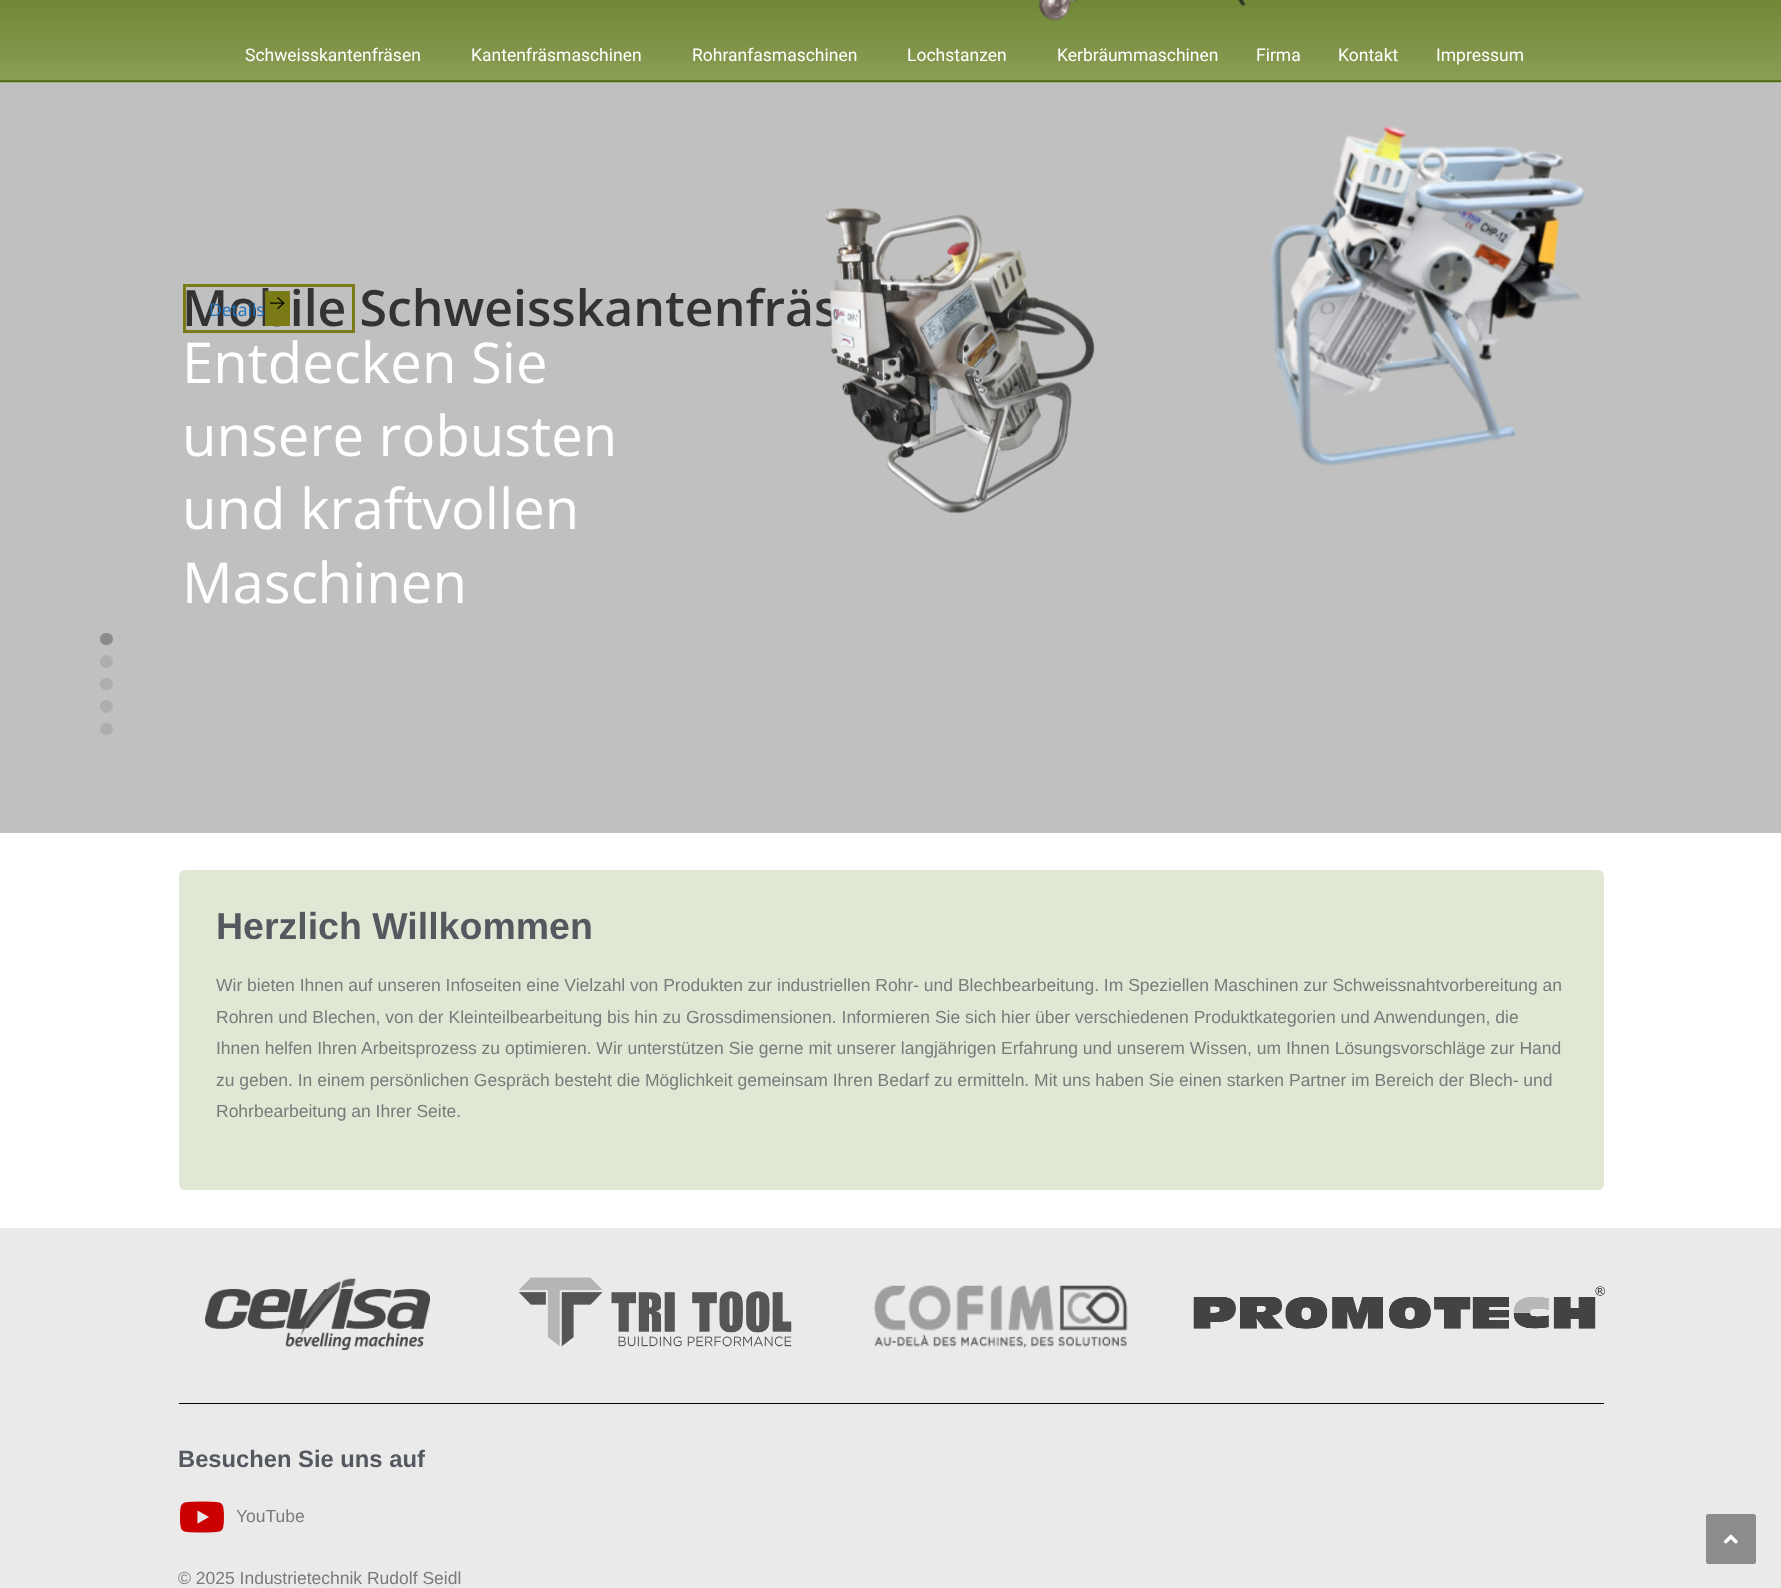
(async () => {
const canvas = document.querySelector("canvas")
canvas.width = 1781
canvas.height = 1588
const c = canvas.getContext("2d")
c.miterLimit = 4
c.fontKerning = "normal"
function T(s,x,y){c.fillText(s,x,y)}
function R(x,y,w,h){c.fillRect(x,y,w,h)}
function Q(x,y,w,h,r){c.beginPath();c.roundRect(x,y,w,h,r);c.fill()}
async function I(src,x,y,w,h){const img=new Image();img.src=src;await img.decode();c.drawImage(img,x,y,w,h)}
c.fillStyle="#fff"
R(0,0,1781,1588)
await I("1.png",0,0,1781,83)
await I("2.png",1038,0,209,21)
c.font="17.5px Roboto"
T("Schweisskantenfräsen",245,61)
T("Kantenfräsmaschinen",471,61)
T("Rohranfasmaschinen",692,61)
T("Lochstanzen",907,61)
T("Kerbräummaschinen",1057,61)
T("Firma",1256,61)
T("Kontakt",1338,61)
T("Impressum",1436,61)
c.fillStyle="#c0c0c0"
R(0,83,1781,750)
c.font="600 50px Open Sans"
c.fillStyle="#333"
T("Mobile Schweisskantenfräs",182,326)
c.strokeStyle="#7a7a17"
c.lineWidth=3
c.strokeRect(184.5,285.5,169,46)
c.font="17.5px Open Sans"
c.fillStyle="#1e73be"
T("Details",209,316)
c.fillStyle="#7a7a17"
R(265,291,25,35)
await I("3.png",270,297,15,12)
c.font="56.25px Open Sans"
c.fillStyle="#fff"
T("Entdecken Sie",182,383)
T("unsere robusten",182,456)
T("und kraftvollen",182,529)
T("Maschinen",182,603)
await I("4.png",825,208,270,306)
await I("5.png",1270,126,315,340)
c.fillStyle="#8a8a8a"
Q(100,633,13,12,6)
c.fillStyle="#aeaeae"
c.beginPath()
c.arc(106.5,661.5,6.5,0,7)
c.fill()
Q(100,678,13,12,6)
c.beginPath()
c.arc(106.5,706.5,6.5,0,7)
c.fill()
Q(100,723,13,12,6)
c.fillStyle="#e0e8d5"
Q(179,870,1425,320,6)
c.font="bold 37.5px Liberation Sans"
c.fillStyle="#54595f"
T("Herzlich Willkommen",216,939)
c.font="17.5px Liberation Sans"
c.fillStyle="#7a7a7a"
T("Wir bieten Ihnen auf unseren Infoseiten eine Vielzahl von Produkten zur industriellen Rohr- und Blechbearbeitung. Im Speziellen Maschinen zur Schweissnahtvorbereitung an",216,991)
T("Rohren und Blechen, von der Kleinteilbearbeitung bis hin zu Grossdimensionen. Informieren Sie sich hier über verschiedenen Produktkategorien und Anwendungen, die",216,1023)
T("Ihnen helfen Ihren Arbeitsprozess zu optimieren. Wir unterstützen Sie gerne mit unserer langjährigen Erfahrung und unserem Wissen, um Ihnen Lösungsvorschläge zur Hand",216,1054)
T("zu geben. In einem persönlichen Gespräch besteht die Möglichkeit gemeinsam Ihren Bedarf zu ermitteln. Mit uns haben Sie einen starken Partner im Bereich der Blech- und",216,1086)
T("Rohrbearbeitung an Ihrer Seite.",216,1117)
c.fillStyle="#eaeaea"
R(0,1228,1781,360)
await I("6.png",205,1278,225,72)
await I("7.png",518,1277,274,70)
await I("8.png",873,1285,255,64)
await I("9.png",1193,1286,412,43)
c.fillStyle="#000"
R(179,1403,1425,1)
c.font="bold 23.75px Liberation Sans"
c.fillStyle="#54595f"
T("Besuchen Sie uns auf",178,1467)
await I("10.png",179,1501,45,32)
c.font="17.5px Liberation Sans"
c.fillStyle="#7a7a7a"
T("YouTube",236,1522)
T("© 2025 Industrietechnik Rudolf Seidl",178,1584)
c.fillStyle="#8c8c8c"
Q(1706,1514,50,50,2.5)
await I("11.png",1723,1534,15,10)
})()
